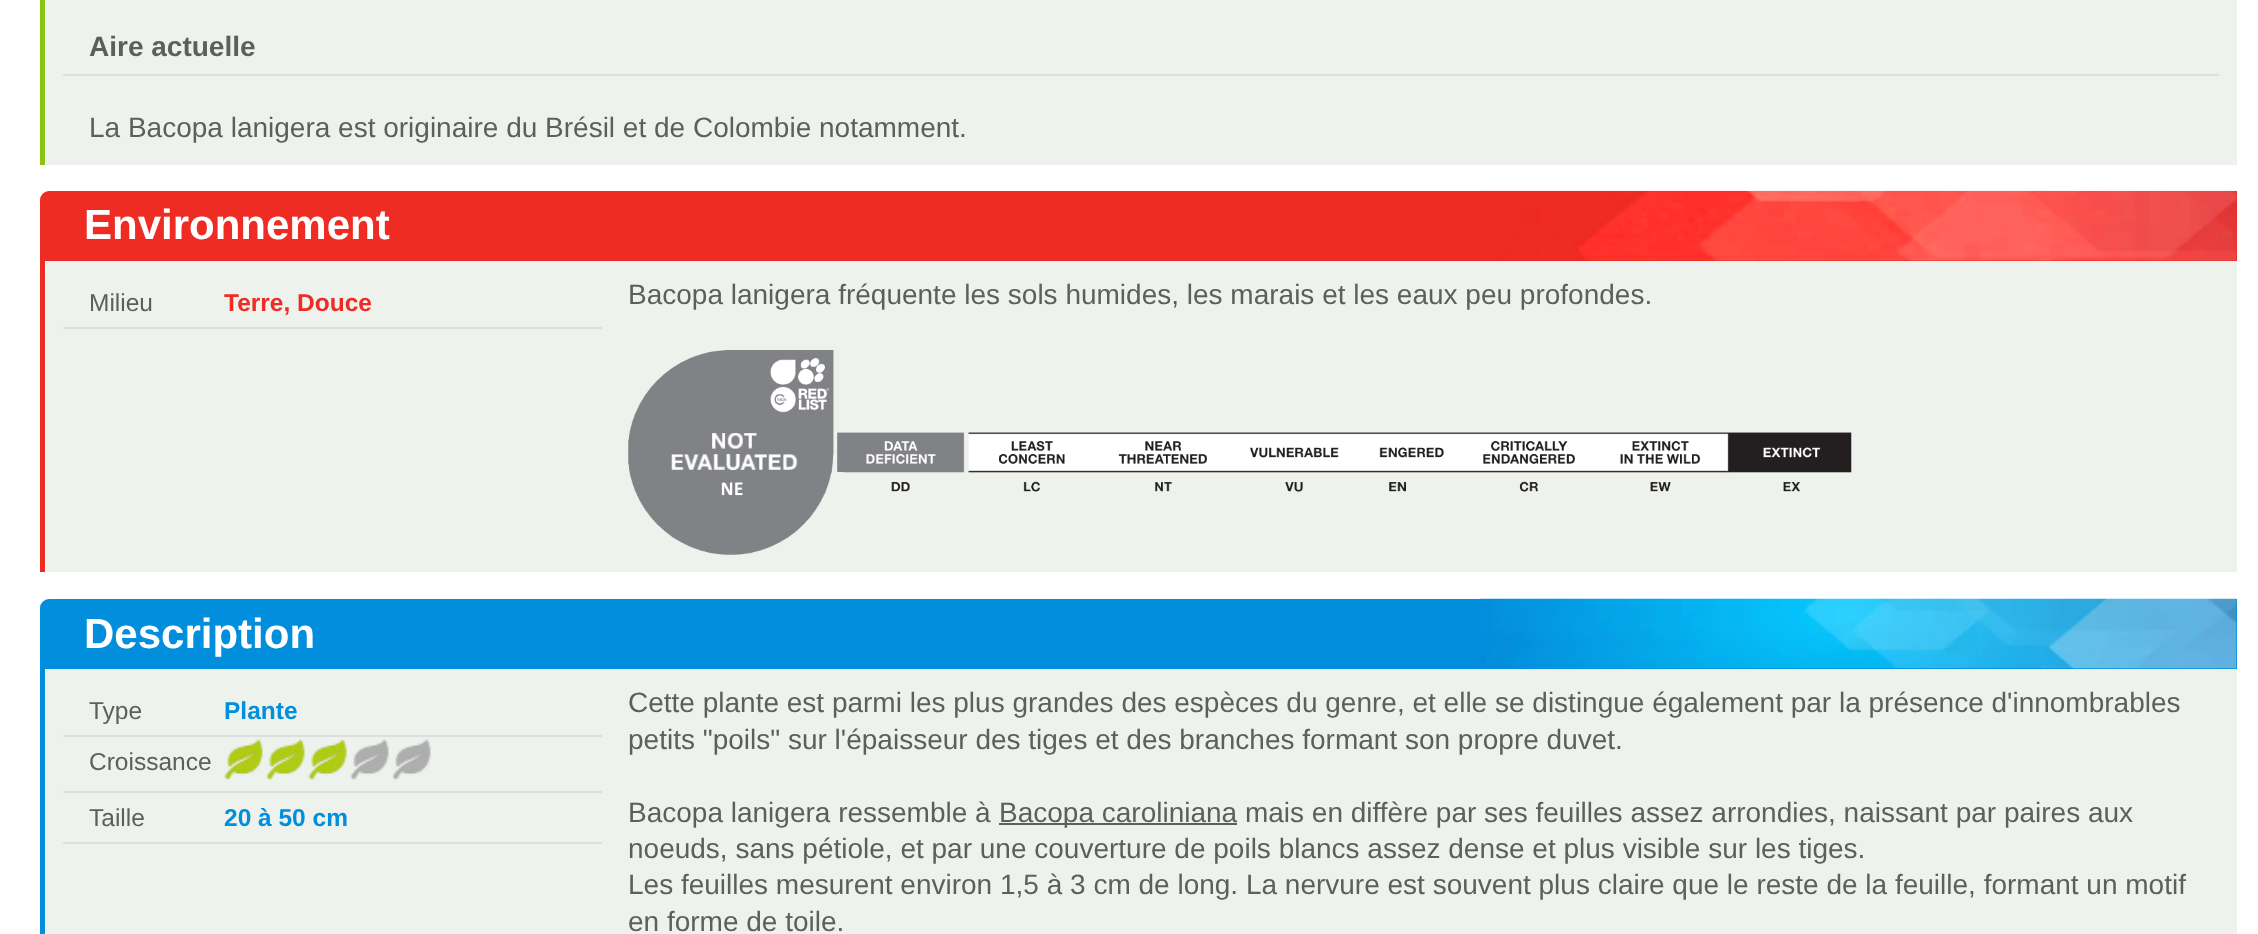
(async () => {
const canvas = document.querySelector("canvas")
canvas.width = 2258
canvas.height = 934
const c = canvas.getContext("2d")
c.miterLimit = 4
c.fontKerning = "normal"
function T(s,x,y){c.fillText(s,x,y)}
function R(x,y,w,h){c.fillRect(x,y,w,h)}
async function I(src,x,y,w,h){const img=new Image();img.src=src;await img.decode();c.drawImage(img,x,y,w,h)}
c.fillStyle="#fff"
R(0,0,2258,934)
c.fillStyle="#edf2ed"
R(46,0,2191,165)
c.fillStyle="#89c314"
R(40,0,5,165)
c.fillStyle="#dedede"
R(63,74,2156,2)
c.font="bold 28px Liberation Sans"
c.fillStyle="#5e5e5e"
T("Aire actuelle",89,56)
c.font="28px Liberation Sans"
T("La Bacopa lanigera est originaire du Brésil et de Colombie notamment.",89,137)
c.fillStyle="#ee2c24"
c.beginPath()
c.roundRect(40,191,2197,70,[9,0,0,0])
c.fill()
await I("1.png",1480,190,757,71)
c.font="bold 42px Liberation Sans"
c.fillStyle="#fff"
T("Environnement",84,239)
c.fillStyle="#edf2ed"
R(46,261,2191,311)
c.fillStyle="#ee2c24"
R(40,261,5,311)
c.fillStyle="#dedede"
R(63,327,539,2)
c.font="24.5px Liberation Sans"
c.fillStyle="#5e5e5e"
T("Milieu",89,311)
c.font="bold 24.5px Liberation Sans"
c.fillStyle="#ee2c24"
T("Terre, Douce",224,311)
c.font="28px Liberation Sans"
c.fillStyle="#5e5e5e"
T("Bacopa lanigera fréquente les sols humides, les marais et les eaux peu profondes.",628,304)
await I("2.png",628,350,1224,205)
c.fillStyle="#018fdd"
c.beginPath()
c.roundRect(40,599,2197,70,[9,0,0,0])
c.fill()
await I("3.png",1480,598,757,71)
c.font="bold 42px Liberation Sans"
c.fillStyle="#fff"
T("Description",84,648)
c.fillStyle="#edf2ed"
R(46,669,2191,265)
c.fillStyle="#018fdd"
R(40,669,5,265)
c.fillStyle="#dedede"
R(63,735,539,2)
c.font="24.5px Liberation Sans"
c.fillStyle="#5e5e5e"
T("Type",89,719)
c.font="bold 24.5px Liberation Sans"
c.fillStyle="#018fdd"
T("Plante",224,719)
c.fillStyle="#dedede"
R(63,791,539,2)
c.font="24.5px Liberation Sans"
c.fillStyle="#5e5e5e"
T("Croissance",89,770)
await I("4.png",224,738,207,43)
c.fillStyle="#dedede"
R(63,842,539,2)
c.fillStyle="#5e5e5e"
T("Taille",89,826)
c.font="bold 24.5px Liberation Sans"
c.fillStyle="#018fdd"
T("20 à 50 cm",224,826)
c.font="28px Liberation Sans"
c.fillStyle="#5e5e5e"
T("Cette plante est parmi les plus grandes des espèces du genre, et elle se distingue également par la présence d'innombrables",628,712)
T("petits \"poils\" sur l'épaisseur des tiges et des branches formant son propre duvet.",628,749)
T("Bacopa lanigera ressemble à",628,822)
R(999,823,238,2)
T("Bacopa caroliniana mais en diffère par ses feuilles assez arrondies, naissant par paires aux",999,822)
T("noeuds, sans pétiole, et par une couverture de poils blancs assez dense et plus visible sur les tiges.",628,858)
T("Les feuilles mesurent environ 1,5 à 3 cm de long. La nervure est souvent plus claire que le reste de la feuille, formant un motif",628,894)
T("en forme de toile.",628,931)
})()
